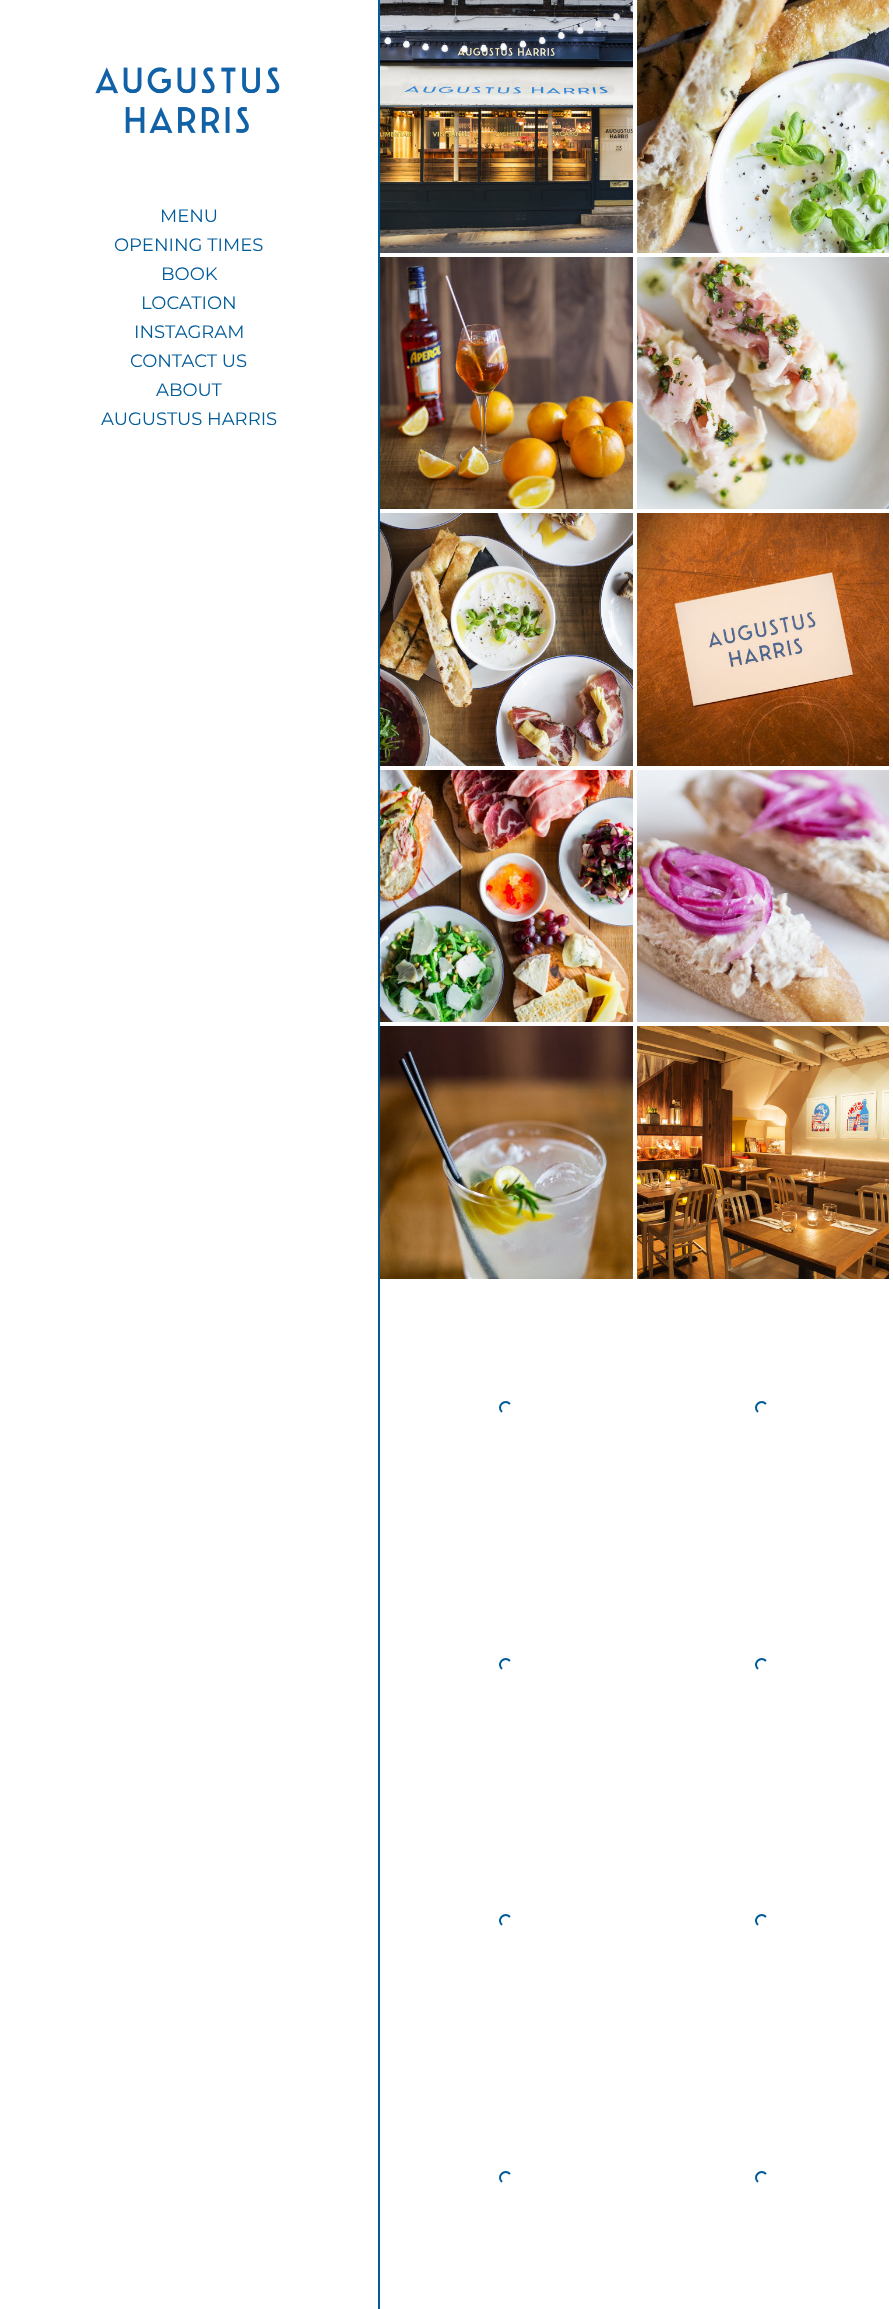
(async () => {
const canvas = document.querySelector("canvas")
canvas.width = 893
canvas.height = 2309
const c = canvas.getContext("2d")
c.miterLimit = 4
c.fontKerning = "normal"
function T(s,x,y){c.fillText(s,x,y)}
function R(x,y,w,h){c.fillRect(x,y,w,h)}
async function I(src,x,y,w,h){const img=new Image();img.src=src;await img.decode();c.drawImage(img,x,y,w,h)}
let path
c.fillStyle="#fff"
R(0,0,893,2309)
c.fillStyle="#005b99"
R(378,0,2,2309)
await I("1.png",95,67,185,66)
c.font="18px Montserrat"
T("MENU",160,222)
T("OPENING TIMES",114,251)
T("BOOK",161,280)
T("LOCATION",141,309)
T("INSTAGRAM",134,338)
T("CONTACT US",130,367)
T("ABOUT",156,396)
T("AUGUSTUS HARRIS",101,425)
await I("2.png",380,0,253,253)
await I("3.png",637,0,252,253)
await I("4.png",380,257,253,252)
await I("5.png",637,257,252,252)
await I("6.png",380,513,253,253)
await I("7.png",637,513,252,253)
await I("8.png",380,770,253,252)
await I("9.png",637,770,252,252)
await I("10.png",380,1026,253,253)
await I("11.png",637,1026,252,253)
path = new Path2D("M502 1412c-6-5.5 2.5-14 8-8")
c.strokeStyle="#005b99"
c.lineWidth=2
c.stroke(path)
path = new Path2D("M758 1412c-6-5.5 2.5-14 8-8")
c.stroke(path)
path = new Path2D("M502 1669c-6-5.5 2.5-14 8-8")
c.stroke(path)
path = new Path2D("M758 1669c-6-5.5 2.5-14 8-8")
c.stroke(path)
path = new Path2D("M502 1925c-6-5.5 2.5-14 8-8")
c.stroke(path)
path = new Path2D("M758 1925c-6-5.5 2.5-14 8-8")
c.stroke(path)
path = new Path2D("M502 2182c-6-5.5 2.5-14 8-8")
c.stroke(path)
path = new Path2D("M758 2182c-6-5.5 2.5-14 8-8")
c.stroke(path)
})()
